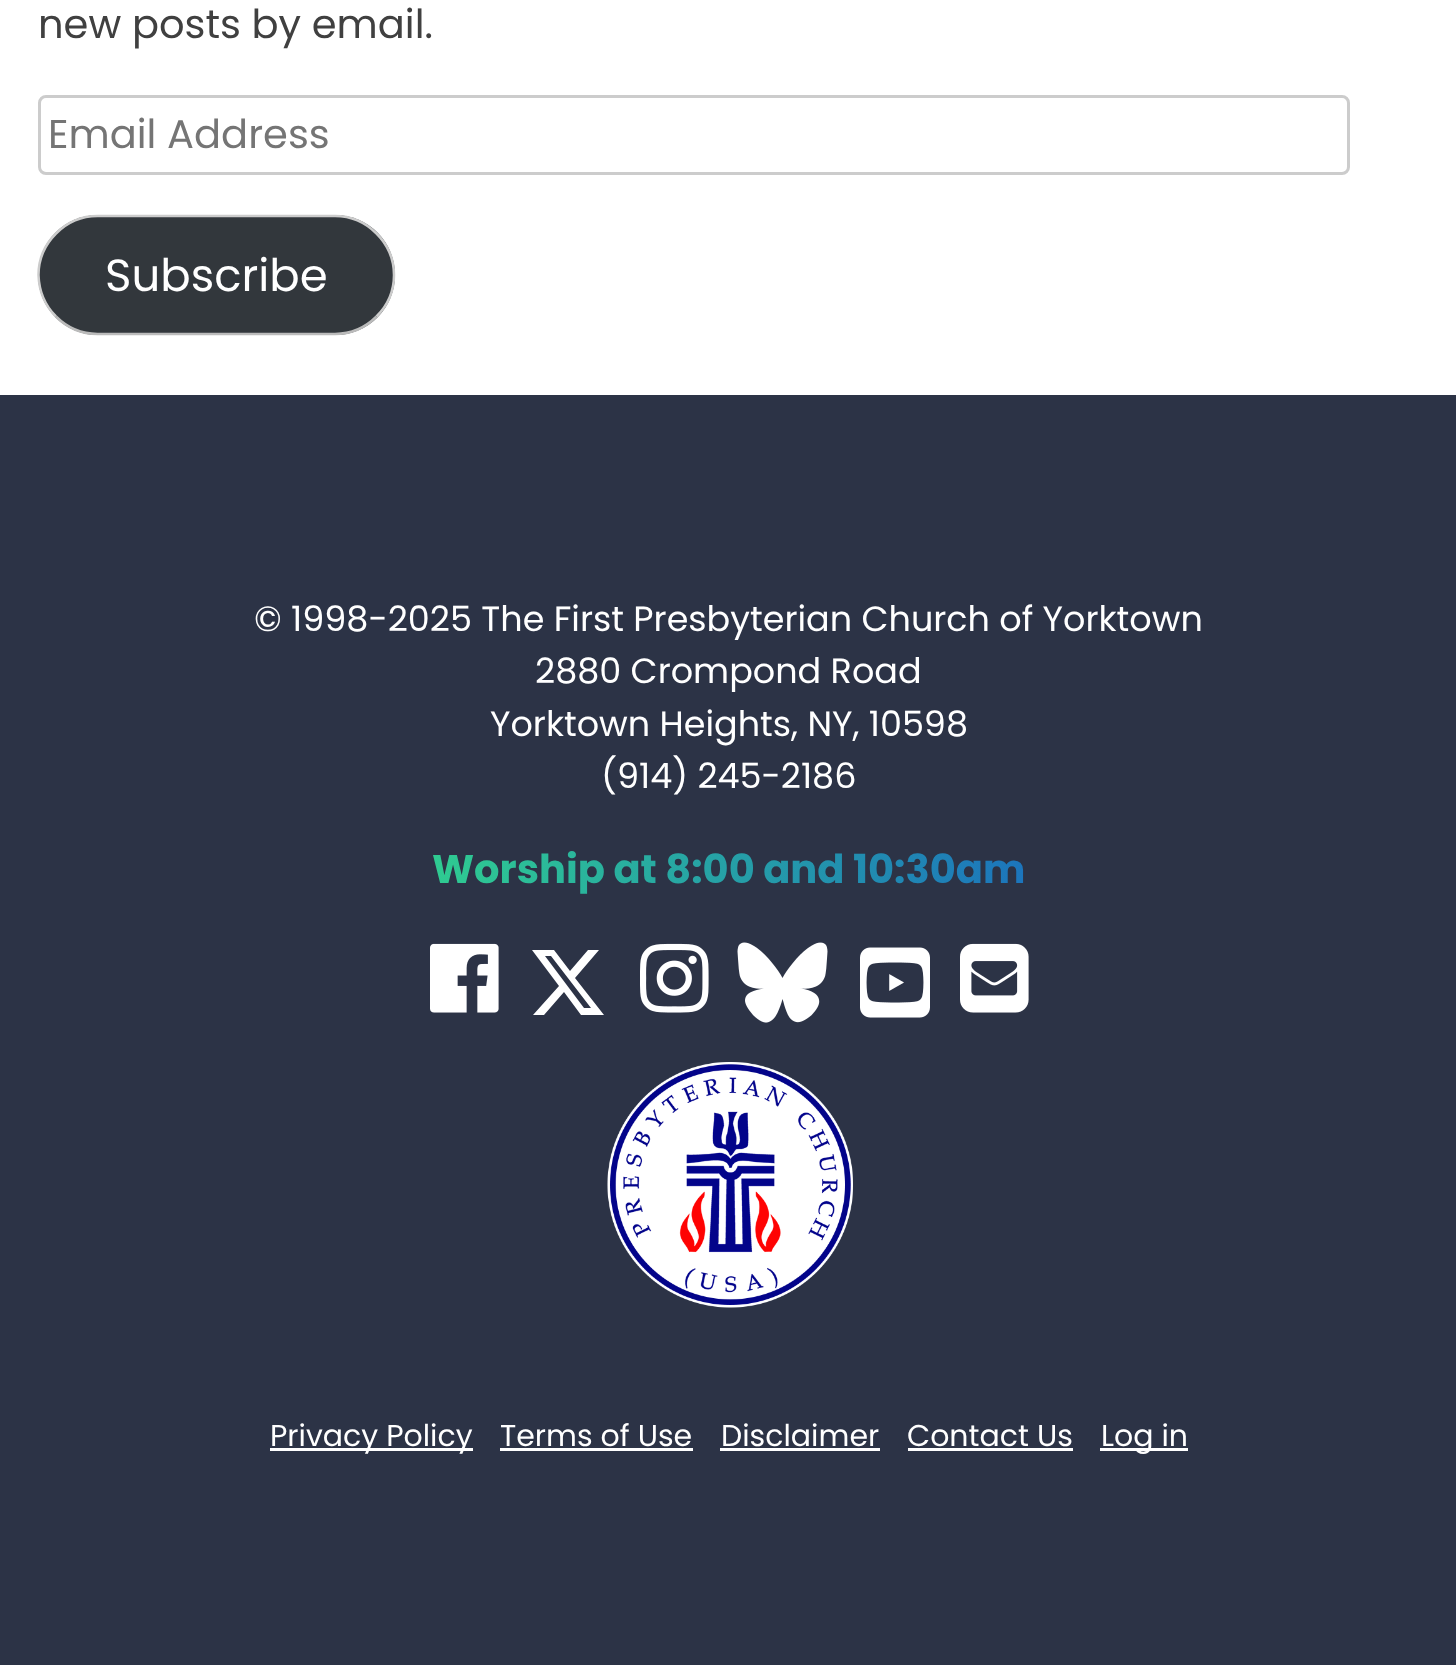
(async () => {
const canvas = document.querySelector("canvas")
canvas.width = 1456
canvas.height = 1665
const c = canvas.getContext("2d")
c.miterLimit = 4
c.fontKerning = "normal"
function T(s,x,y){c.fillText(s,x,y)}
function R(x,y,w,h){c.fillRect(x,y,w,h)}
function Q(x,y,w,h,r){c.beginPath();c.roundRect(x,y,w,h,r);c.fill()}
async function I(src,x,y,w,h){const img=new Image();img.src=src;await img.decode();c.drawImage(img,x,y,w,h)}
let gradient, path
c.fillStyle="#fff"
R(0,0,1456,1665)
c.font="40px Poppins"
c.fillStyle="#404040"
T("new posts by email.",38,38)
c.beginPath()
c.roundRect(39.5,96.5,1309,77,6.5)
c.strokeStyle="#ccc"
c.lineWidth=3
c.stroke()
c.fillStyle="#757575"
T("Email Address",48,148)
c.fillStyle="#32373c"
Q(38,215,357,120,60)
path = new Path2D("M376.5 316.5c-11 11-26 17.5-41.5 17.5h-237.5c-15.5 0-30.5-6.5-41.5-17.5")
c.strokeStyle="#bbb"
c.lineWidth=2.5
c.stroke(path)
path = new Path2D("M56 316.5c-11-11-17-26-17.5-41.5c0-15.5 6.5-30.5 17.5-41.5c11-11 26-17.5 41.5-17.5h237.5c15.5 0 30.5 6.5 41.5 17.5c11 11 17.5 26 17.5 41.5c0 15.5-6.5 30.5-17.5 41.5")
c.strokeStyle="#ccc"
c.stroke(path)
c.font="45px Poppins"
c.fillStyle="#fff"
T("Subscribe",105,291)
c.fillStyle="#2c3346"
R(0,395,1456,1270)
c.font="35px Poppins"
c.fillStyle="#fff"
T("© 1998-2025 The First Presbyterian Church of Yorktown",254,631)
T("2880 Crompond Road",535,683)
T("Yorktown Heights, NY, 10598",490,736)
T("(914) 245-2186",601,788)
c.font="bold 40px Poppins"
gradient = c.createLinearGradient(432,841,1025,841)
gradient.addColorStop(0,"#2fcb91")
gradient.addColorStop(1,"#1c75bc")
c.fillStyle = gradient
T("Worship at 8:00 and 10:30am",432,883)
await I("1.png",430,943,69,70)
c.fillStyle="#fff"
path = new Path2D("M588 950h11h-11h11l-24 28l29 37h-23l-17-23l-20 23h-11l26-29l-27-36h22l16 21zm-4 58h7h-7h7l-40-52h-6z")
c.fill(path)
await I("2.png",640,943,69,70)
await I("3.png",737,942,91,81)
await I("4.png",860,947,70,71)
await I("5.png",960,943,69,70)
await I("6.png",607,1062,246,246)
R(270,1448,203,3)
c.font="30px Poppins"
T("Privacy Policy",270,1446)
T("Terms of Use",500,1446)
R(500,1448,193,3)
T("Disclaimer",721,1446)
R(720,1448,160,3)
T("Contact Us",907,1446)
R(908,1448,165,3)
R(1100,1448,88,3)
T("Log in",1101,1446)
})()
